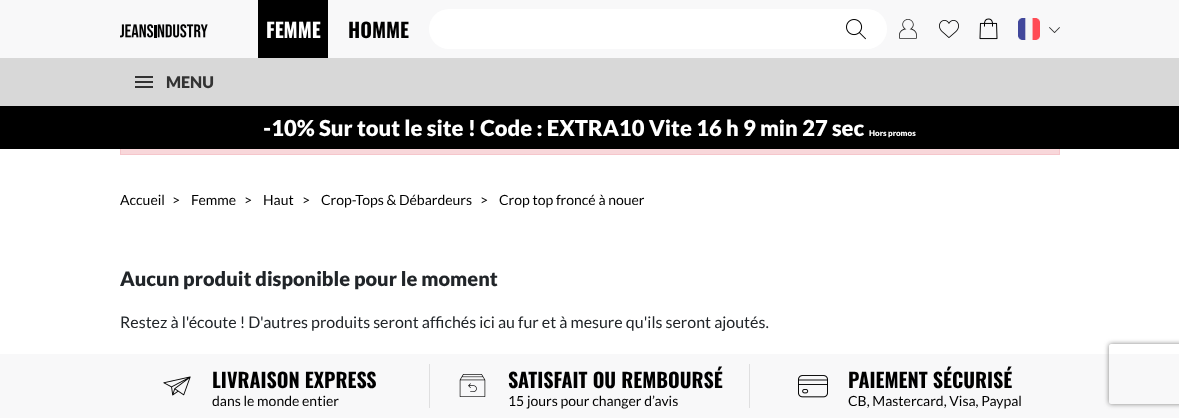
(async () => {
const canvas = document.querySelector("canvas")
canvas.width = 1179
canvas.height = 418
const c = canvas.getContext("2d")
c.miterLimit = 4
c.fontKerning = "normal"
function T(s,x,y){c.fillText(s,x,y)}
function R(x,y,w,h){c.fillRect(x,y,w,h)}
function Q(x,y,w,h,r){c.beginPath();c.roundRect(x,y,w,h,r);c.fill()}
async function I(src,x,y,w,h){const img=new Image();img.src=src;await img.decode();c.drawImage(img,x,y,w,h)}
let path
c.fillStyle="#fff"
R(0,0,1179,418)
c.fillStyle="#f8f8f9"
R(0,0,1179,58)
await I("1.png",120,24,88,14)
c.fillStyle="#000"
R(258,0,70,58)
c.font="bold 20px Oswald"
c.fillStyle="#fff"
T("FEMME",266,38)
c.fillStyle="#000"
T("HOMME",348,38)
c.fillStyle="#fff"
Q(429,9,458,40,20)
await I("2.png",846,19,20,21)
await I("3.png",899,19,18,20)
await I("4.png",939,20,20,18)
await I("5.png",979,18,19,22)
await I("6.png",1018,18,22,22)
await I("7.png",1049,27,11,6)
c.fillStyle="#f8d7da"
R(121,149,938,5)
c.strokeStyle="#f5c6cb"
c.strokeRect(120.5,105.5,939,49)
c.fillStyle="#d8d8d8"
R(0,58,1179,48)
c.fillStyle="#333"
R(135,76,18,2)
R(135,81,18,2)
R(135,86,18,2)
c.font="900 16px Lato"
T("MENU",166,88)
c.fillStyle="#000"
R(0,106,1179,43)
c.font="900 22px Lato"
c.fillStyle="#fff"
T("-10% Sur tout le site ! Code : EXTRA10 Vite 16 h 9 min 27 sec",263,136)
c.font="900 8px Lato"
T("Hors promos",869,136)
c.font="14px Lato"
c.fillStyle="#000"
T("Accueil",120,205)
T(">",172,205)
T("Femme",191,205)
T(">",244,205)
T("Haut",263,205)
T(">",302,205)
T("Crop-Tops & Débardeurs",321,205)
T(">",480,205)
T("Crop top froncé à nouer",499,205)
c.font="900 20px Lato"
c.fillStyle="#212529"
T("Aucun produit disponible pour le moment",120,286)
c.font="16px Lato"
T("Restez à l'écoute ! D'autres produits seront affichés ici au fur et à mesure qu'ils seront ajoutés.",120,328)
c.fillStyle="#f8f8f9"
R(0,354,1179,64)
await I("8.png",163,376,28,20)
c.font="bold 20px Oswald"
c.fillStyle="#000"
T("LIVRAISON EXPRESS",212,388)
c.font="14px Lato"
T("dans le monde entier",212,406)
c.fillStyle="#dfdfe0"
R(429,364,1,44)
await I("9.png",459,374,27,23)
c.font="bold 20px Oswald"
c.fillStyle="#000"
T("SATISFAIT OU REMBOURSÉ",508,388)
c.font="14px Lato"
T("15 jours pour changer d’avis",508,406)
c.fillStyle="#dfdfe0"
R(749,364,1,44)
await I("10.png",798,375,30,23)
c.font="bold 20px Oswald"
c.fillStyle="#000"
T("PAIEMENT SÉCURISÉ",848,388)
c.font="14px Lato"
T("CB, Mastercard, Visa, Paypal",848,406)
c.save()
path = new Path2D("M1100 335h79v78h-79zm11 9h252c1 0 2 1 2 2v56c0 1-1 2-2 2h-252c-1 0-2-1-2-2v-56c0-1 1-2 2-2z")
c.clip(path,"evenodd")
c.fillStyle="#808080"
c.filter="blur(2.5px)"
c.beginPath()
c.roundRect(1109,344,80,60,2)
c.fill()
c.filter="none"
c.restore()
})()
